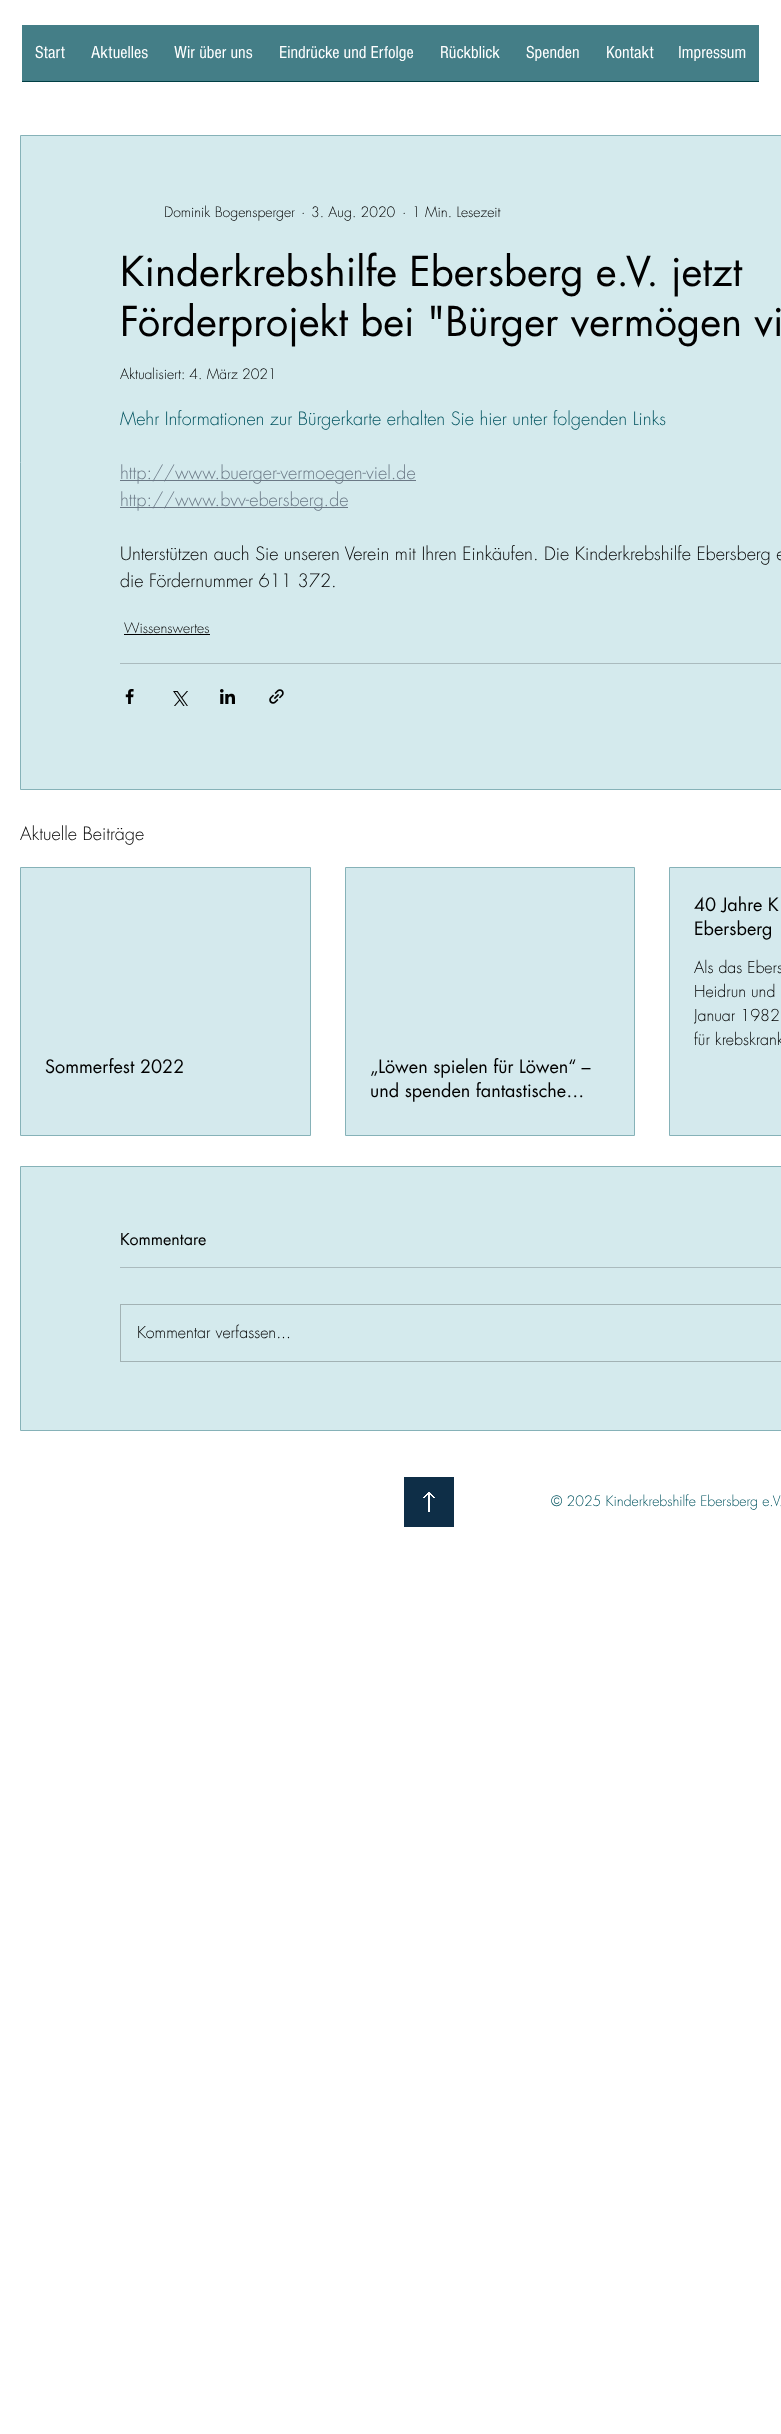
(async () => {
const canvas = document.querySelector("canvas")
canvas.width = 781
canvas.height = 2434
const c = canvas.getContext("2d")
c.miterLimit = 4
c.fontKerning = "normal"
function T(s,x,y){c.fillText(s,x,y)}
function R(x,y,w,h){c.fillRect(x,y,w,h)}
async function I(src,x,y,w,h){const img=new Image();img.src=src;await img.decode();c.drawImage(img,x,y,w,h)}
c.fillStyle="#fff"
R(0,0,781,2434)
c.fillStyle="#447e87"
R(22,25,737,56)
c.fillStyle="#003f44"
R(22,81,737,1)
c.font="18px 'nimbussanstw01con'"
c.fillStyle="#fff"
T("Start",35,58)
T("Aktuelles",91,58)
T("Wir über uns",174,58)
T("Eindrücke und Erfolge",279,58)
T("Rückblick",440,58)
T("Spenden",526,58)
T("Kontakt",606,58)
T("Impressum",678,58)
c.fillStyle="#d4eaed"
c.beginPath()
c.rect(20.5,135.5,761,654)
c.fill()
c.strokeStyle="#86b2b8"
c.stroke()
c.font="300 14px futura"
c.fillStyle="#000"
T("Dominik Bogensperger",164,217)
T("·",301,217)
T("3. Aug. 2020",311,217)
T("·",402,217)
T("1 Min. Lesezeit",412,217)
c.font="40px futura"
T("Kinderkrebshilfe Ebersberg e.V. jetzt",120,286)
T("Förderprojekt bei \"Bürger vermögen vi",120,336)
c.font="300 14px futura"
T("Aktualisiert: 4. März 2021",120,379)
c.font="300 18px futura"
c.fillStyle="#00535f"
T("Mehr Informationen zur Bürgerkarte erhalten Sie hier unter folgenden Links",120,425)
c.fillStyle="#6b7986"
R(120,480,296,1)
T("http://www.buerger-vermoegen-viel.de",120,479)
R(120,507,228,1)
T("http://www.bvv-ebersberg.de",120,506)
c.fillStyle="#000"
T("Unterstützen auch Sie unseren Verein mit Ihren Einkäufen. Die Kinderkrebshilfe Ebersberg e",120,560)
T("die Fördernummer 611 372.",120,587)
c.font="300 14px futura"
T("Wissenswertes",124,633)
R(124,634,86,1)
c.fillStyle="#aabbbe"
R(120,663,661,1)
await I("1.png",125,689,9,15)
await I("2.png",173,691,15,15)
await I("3.png",220,689,15,15)
await I("4.png",269,689,15,15)
c.font="300 18px futura"
c.fillStyle="#000"
T("Aktuelle Beiträge",20,840)
c.fillStyle="#d4e9ed"
c.beginPath()
c.rect(669.5,867.5,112,268)
c.fill()
c.stroke()
c.font="18px futura"
c.fillStyle="#000"
T("40 Jahre K",694,911)
T("Ebersberg",694,935)
c.font="300 16px futura"
T("Als das Ebers",694,973)
T("Heidrun und",694,997)
c.save()
c.beginPath()
c.rect(694,956,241,96)
c.clip()
T("Januar 1982",694,1021)
c.restore()
T("für krebskrank",694,1045)
c.fillStyle="#d4e9ed"
c.beginPath()
c.rect(20.5,867.5,290,268)
c.fill()
c.stroke()
c.font="18px futura"
c.fillStyle="#000"
T("Sommerfest 2022",45,1073)
c.fillStyle="#d4e9ed"
c.beginPath()
c.rect(345.5,867.5,289,268)
c.fill()
c.stroke()
c.fillStyle="#000"
T("„Löwen spielen für Löwen“ –",370,1073)
T("und spenden fantastische…",370,1097)
c.fillStyle="#d4eaed"
c.beginPath()
c.rect(20.5,1166.5,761,264)
c.fill()
c.stroke()
c.font="16px futura"
c.fillStyle="#000"
T("Kommentare",120,1245)
c.fillStyle="#aabbbe"
R(120,1267,661,1)
c.strokeStyle="#a2b2b4"
c.strokeRect(120.5,1304.5,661,57)
c.font="300 16px futura"
c.fillStyle="#000"
T("Kommentar verfassen...",137,1338)
await I("5.png",404,1477,50,50)
c.font="300 14px futura"
c.fillStyle="#00535f"
T("© 2025 Kinderkrebshilfe Ebersberg e.V.",551,1506)
})()
